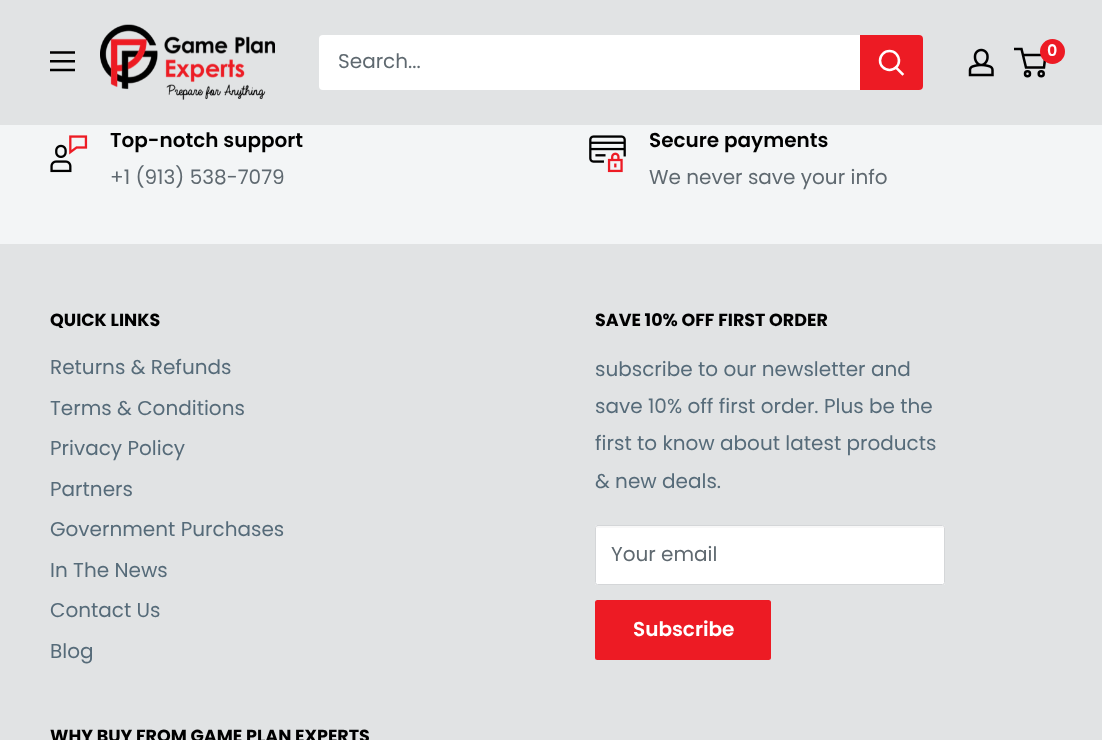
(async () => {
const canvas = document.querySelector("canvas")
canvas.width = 1102
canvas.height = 740
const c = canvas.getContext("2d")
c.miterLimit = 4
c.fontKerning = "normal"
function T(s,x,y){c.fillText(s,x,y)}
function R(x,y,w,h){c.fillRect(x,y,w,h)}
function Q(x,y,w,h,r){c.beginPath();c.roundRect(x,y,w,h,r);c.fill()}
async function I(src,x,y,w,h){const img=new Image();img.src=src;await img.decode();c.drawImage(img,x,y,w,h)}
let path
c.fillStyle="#f3f5f6"
R(0,0,1102,740)
c.fillStyle="#e1e3e4"
R(0,0,1102,125)
await I("1.png",100,24,175,76)
await I("2.png",968,48,26,29)
c.beginPath()
c.arc(1027.5,73.8,2.5,0,7)
c.strokeStyle="#000"
c.lineWidth=2.5
c.stroke()
c.beginPath()
c.arc(1041.2,73.8,2.5,0,7)
c.stroke()
path = new Path2D("M1023 55h22.5l-1.5 12.5h-18l-4.5-18.5h-7.5")
c.stroke(path)
c.fillStyle="#ed1b24"
c.beginPath()
c.arc(1052.5,51.5,12.5,0,7)
c.fill()
c.font="600 16px Poppins"
c.fillStyle="#fff"
T("0",1047,56)
await I("3.png",50,51,25,21)
Q(319,35,604,55,4)
c.font="20px Poppins"
c.fillStyle="#5f6970"
T("Search...",338,68)
c.fillStyle="#ed1b24"
c.beginPath()
c.roundRect(860,35,63,55,[0,4,4,0])
c.fill()
path = new Path2D("M902.5 74l-6.5-6.5")
c.strokeStyle="#fff"
c.lineCap="square"
c.stroke(path)
c.beginPath()
c.arc(889.5,60.5,9.5,0,7)
c.stroke()
await I("4.png",50,135,38,38)
c.font="600 20px Poppins"
c.fillStyle="#000"
T("Top-notch support",110,147)
c.font="20px Poppins"
c.fillStyle="#5f6970"
T("+1 (913) 538-7079",110,184)
await I("5.png",589,135,37,38)
c.font="600 20px Poppins"
c.fillStyle="#000"
T("Secure payments",649,147)
c.font="20px Poppins"
c.fillStyle="#5f6970"
T("We never save your info",649,184)
c.fillStyle="#e1e3e4"
R(0,244,1102,496)
c.font="bold 17.5px Poppins"
c.fillStyle="#000"
T("QUICK LINKS",50,326)
c.font="20px Poppins"
c.fillStyle="#566b79"
T("Returns & Refunds",50,374)
T("Terms & Conditions",50,415)
T("Privacy Policy",50,455)
T("Partners",50,496)
T("Government Purchases",50,536)
T("In The News",50,577)
T("Contact Us",50,617)
T("Blog",50,658)
c.font="bold 17.5px Poppins"
c.fillStyle="#000"
T("SAVE 10% OFF FIRST ORDER",595,326)
c.font="20px Poppins"
c.fillStyle="#566b79"
T("subscribe to our newsletter and",595,376)
T("save 10% off first order. Plus be the",595,413)
T("first to know about latest products",595,450)
T("& new deals.",595,488)
c.fillStyle="#fff"
Q(595,525,350,60,2.5)
c.fillStyle="#f8f8f8"
path = new Path2D("M598 528h344c1 0 2 0 2 1v-3h-347c-1 0-1 2-1 3c0-1 1-1 2-1z")
c.fill(path)
c.beginPath()
c.roundRect(595.5,525.5,349,59,2)
c.strokeStyle="#d4d6d8"
c.lineWidth=1
c.stroke()
c.fillStyle="#5f6970"
T("Your email",611,561)
c.fillStyle="#ed1b24"
Q(595,600,176,60,2.5)
c.font="600 20px Poppins"
c.fillStyle="#fff"
T("Subscribe",633,636)
c.font="bold 17.5px Poppins"
c.fillStyle="#000"
T("WHY BUY FROM GAME PLAN EXPERTS",50,742)
})()
